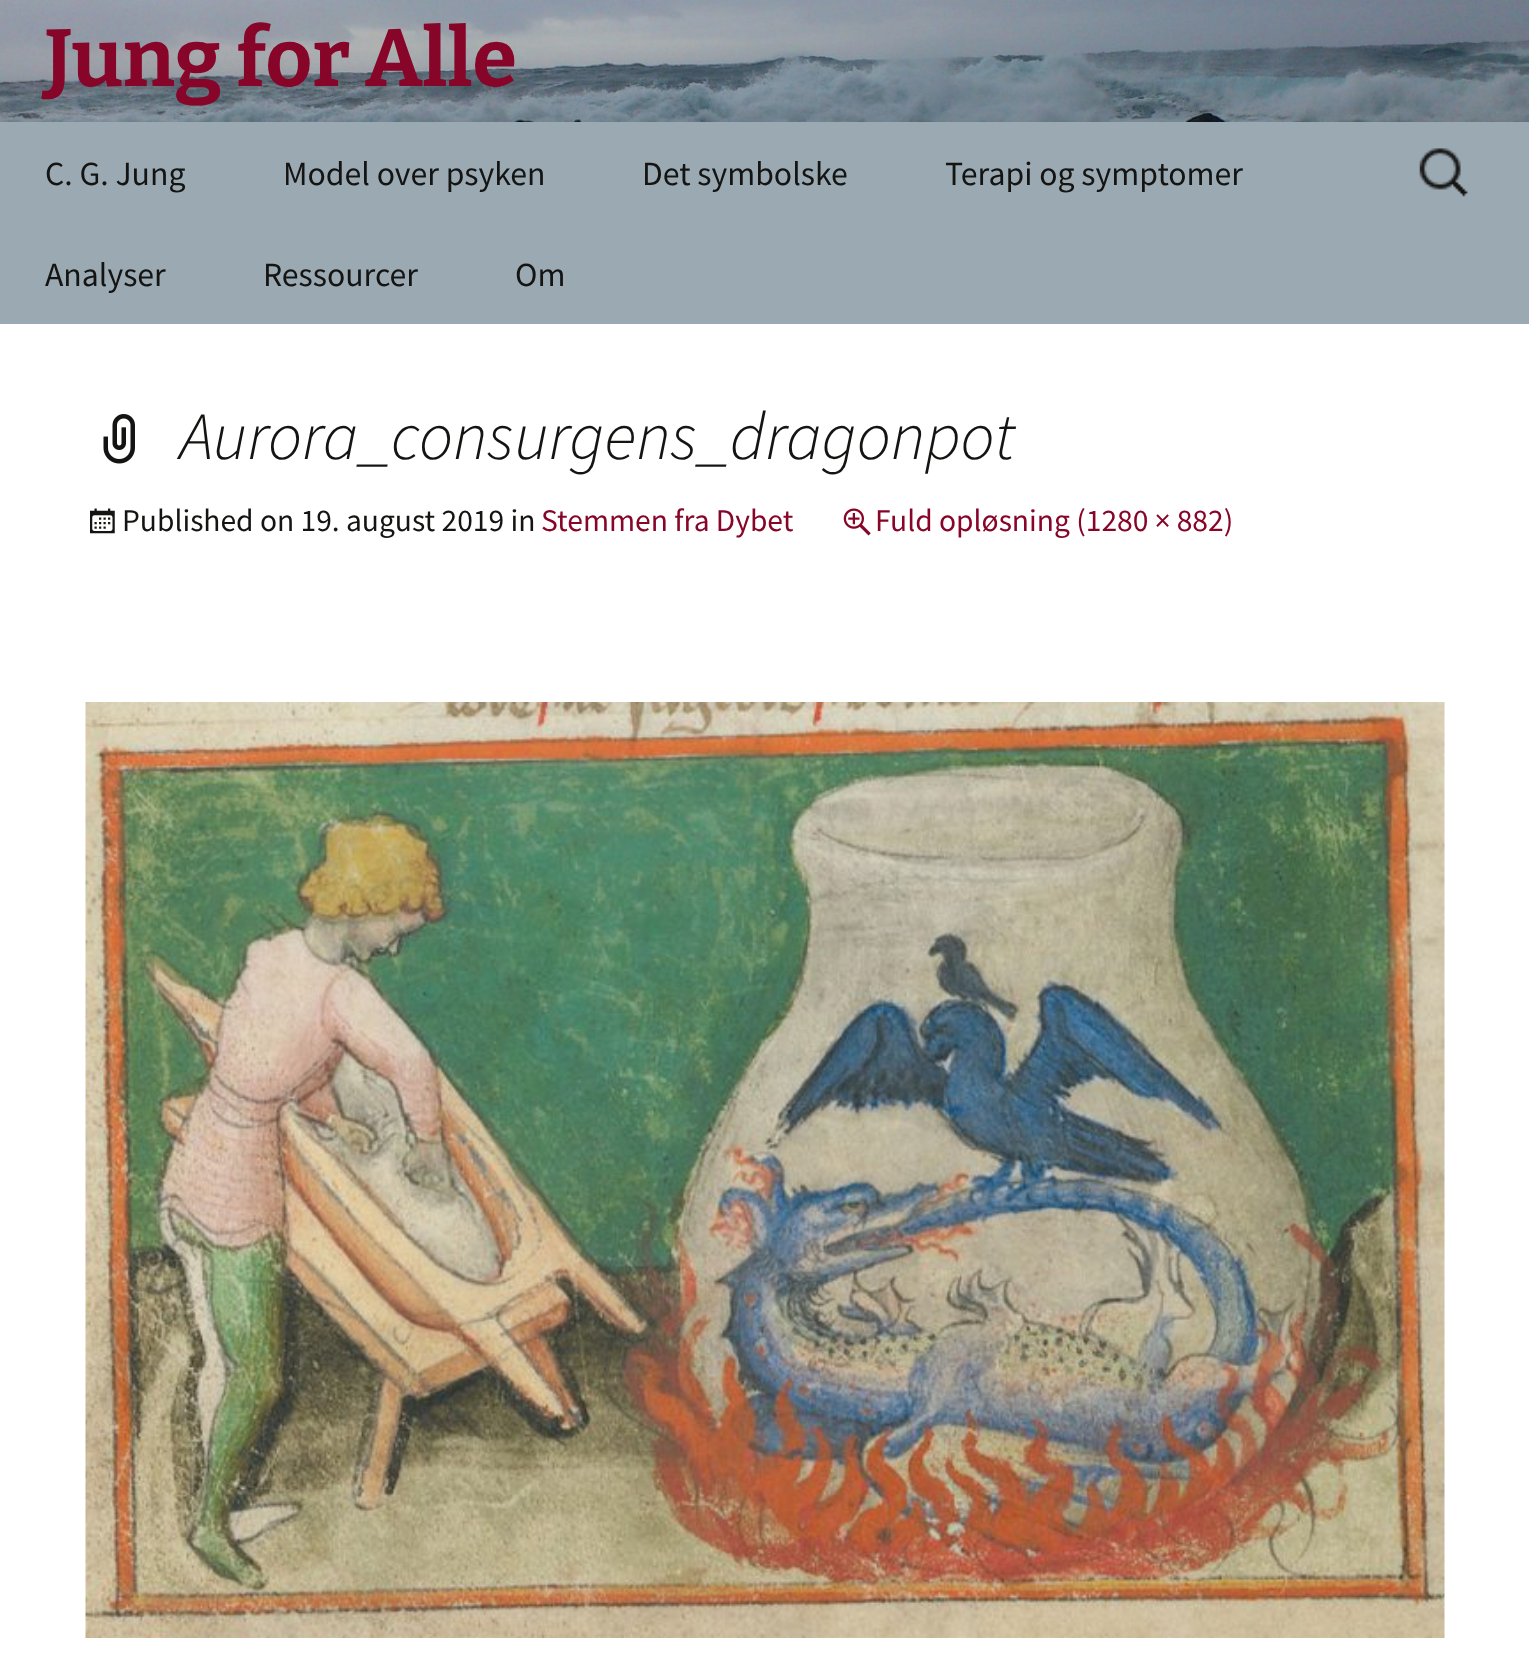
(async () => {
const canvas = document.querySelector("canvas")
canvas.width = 1529
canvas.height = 1673
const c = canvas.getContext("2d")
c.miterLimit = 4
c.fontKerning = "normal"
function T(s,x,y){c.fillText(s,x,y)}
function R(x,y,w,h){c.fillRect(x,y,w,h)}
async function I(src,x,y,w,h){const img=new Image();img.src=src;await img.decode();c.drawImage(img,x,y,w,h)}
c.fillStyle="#fff"
R(0,0,1529,1673)
await I("1.png",0,0,1529,122)
c.font="100 81px Bitter"
c.fillStyle="#870528"
T("Jung for Alle",45,86)
c.fillStyle="#9ba9b3"
R(0,122,1529,202)
c.font="33.75px Source Sans Pro"
c.fillStyle="#141412"
T("C. G. Jung",45,185)
T("Model over psyken",283,185)
T("Det symbolske",642,185)
T("Terapi og symptomer",945,185)
T("Analyser",45,286)
T("Ressourcer",263,286)
T("Om",515,286)
await I("2.png",1419,148,49,49)
await I("3.png",103,414,32,50)
c.font="italic 300 67.5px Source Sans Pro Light"
T("Aurora_consurgens_dragonpot",180,459)
await I("4.png",90,508,25,26)
c.font="31.5px Source Sans Pro"
T("Published on 19. august 2019 in",122,531)
c.fillStyle="#870528"
T("Stemmen fra Dybet",541,531)
await I("5.png",843,508,28,28)
T("Fuld opløsning (1280 × 882)",875,531)
await I("6.png",85,702,1360,936)
})()
